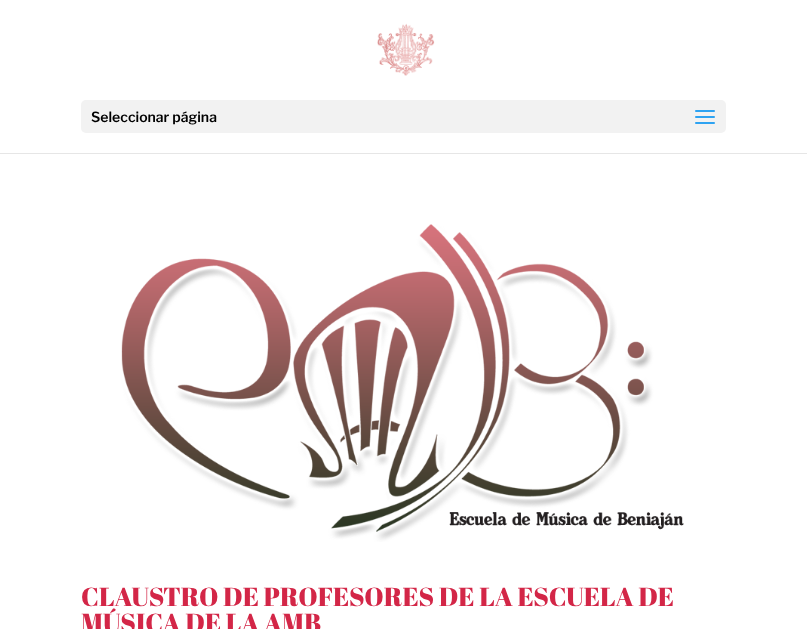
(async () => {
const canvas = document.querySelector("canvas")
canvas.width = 807
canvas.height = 629
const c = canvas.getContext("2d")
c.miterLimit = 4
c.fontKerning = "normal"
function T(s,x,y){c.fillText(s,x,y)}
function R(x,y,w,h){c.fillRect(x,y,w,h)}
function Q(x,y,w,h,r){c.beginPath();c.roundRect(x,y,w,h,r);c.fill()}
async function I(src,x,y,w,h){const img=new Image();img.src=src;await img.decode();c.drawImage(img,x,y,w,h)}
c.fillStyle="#fff"
R(0,0,807,629)
c.fillStyle="#e6e6e6"
R(0,153,807,1)
await I("1.png",377,23,58,53)
c.fillStyle="#f2f2f2"
Q(81,100,645,33,5)
c.font="600 14px Libre Franklin"
c.fillStyle="#000"
T("Seleccionar página",91,122)
await I("2.png",695,110,20,14)
await I("3.png",121,224,563,318)
c.font="26px Abril Fatface"
c.fillStyle="#d32647"
T("CLAUSTRO DE PROFESORES DE LA ESCUELA DE",81,606)
T("MÚSICA DE LA AMB",81,632)
})()
